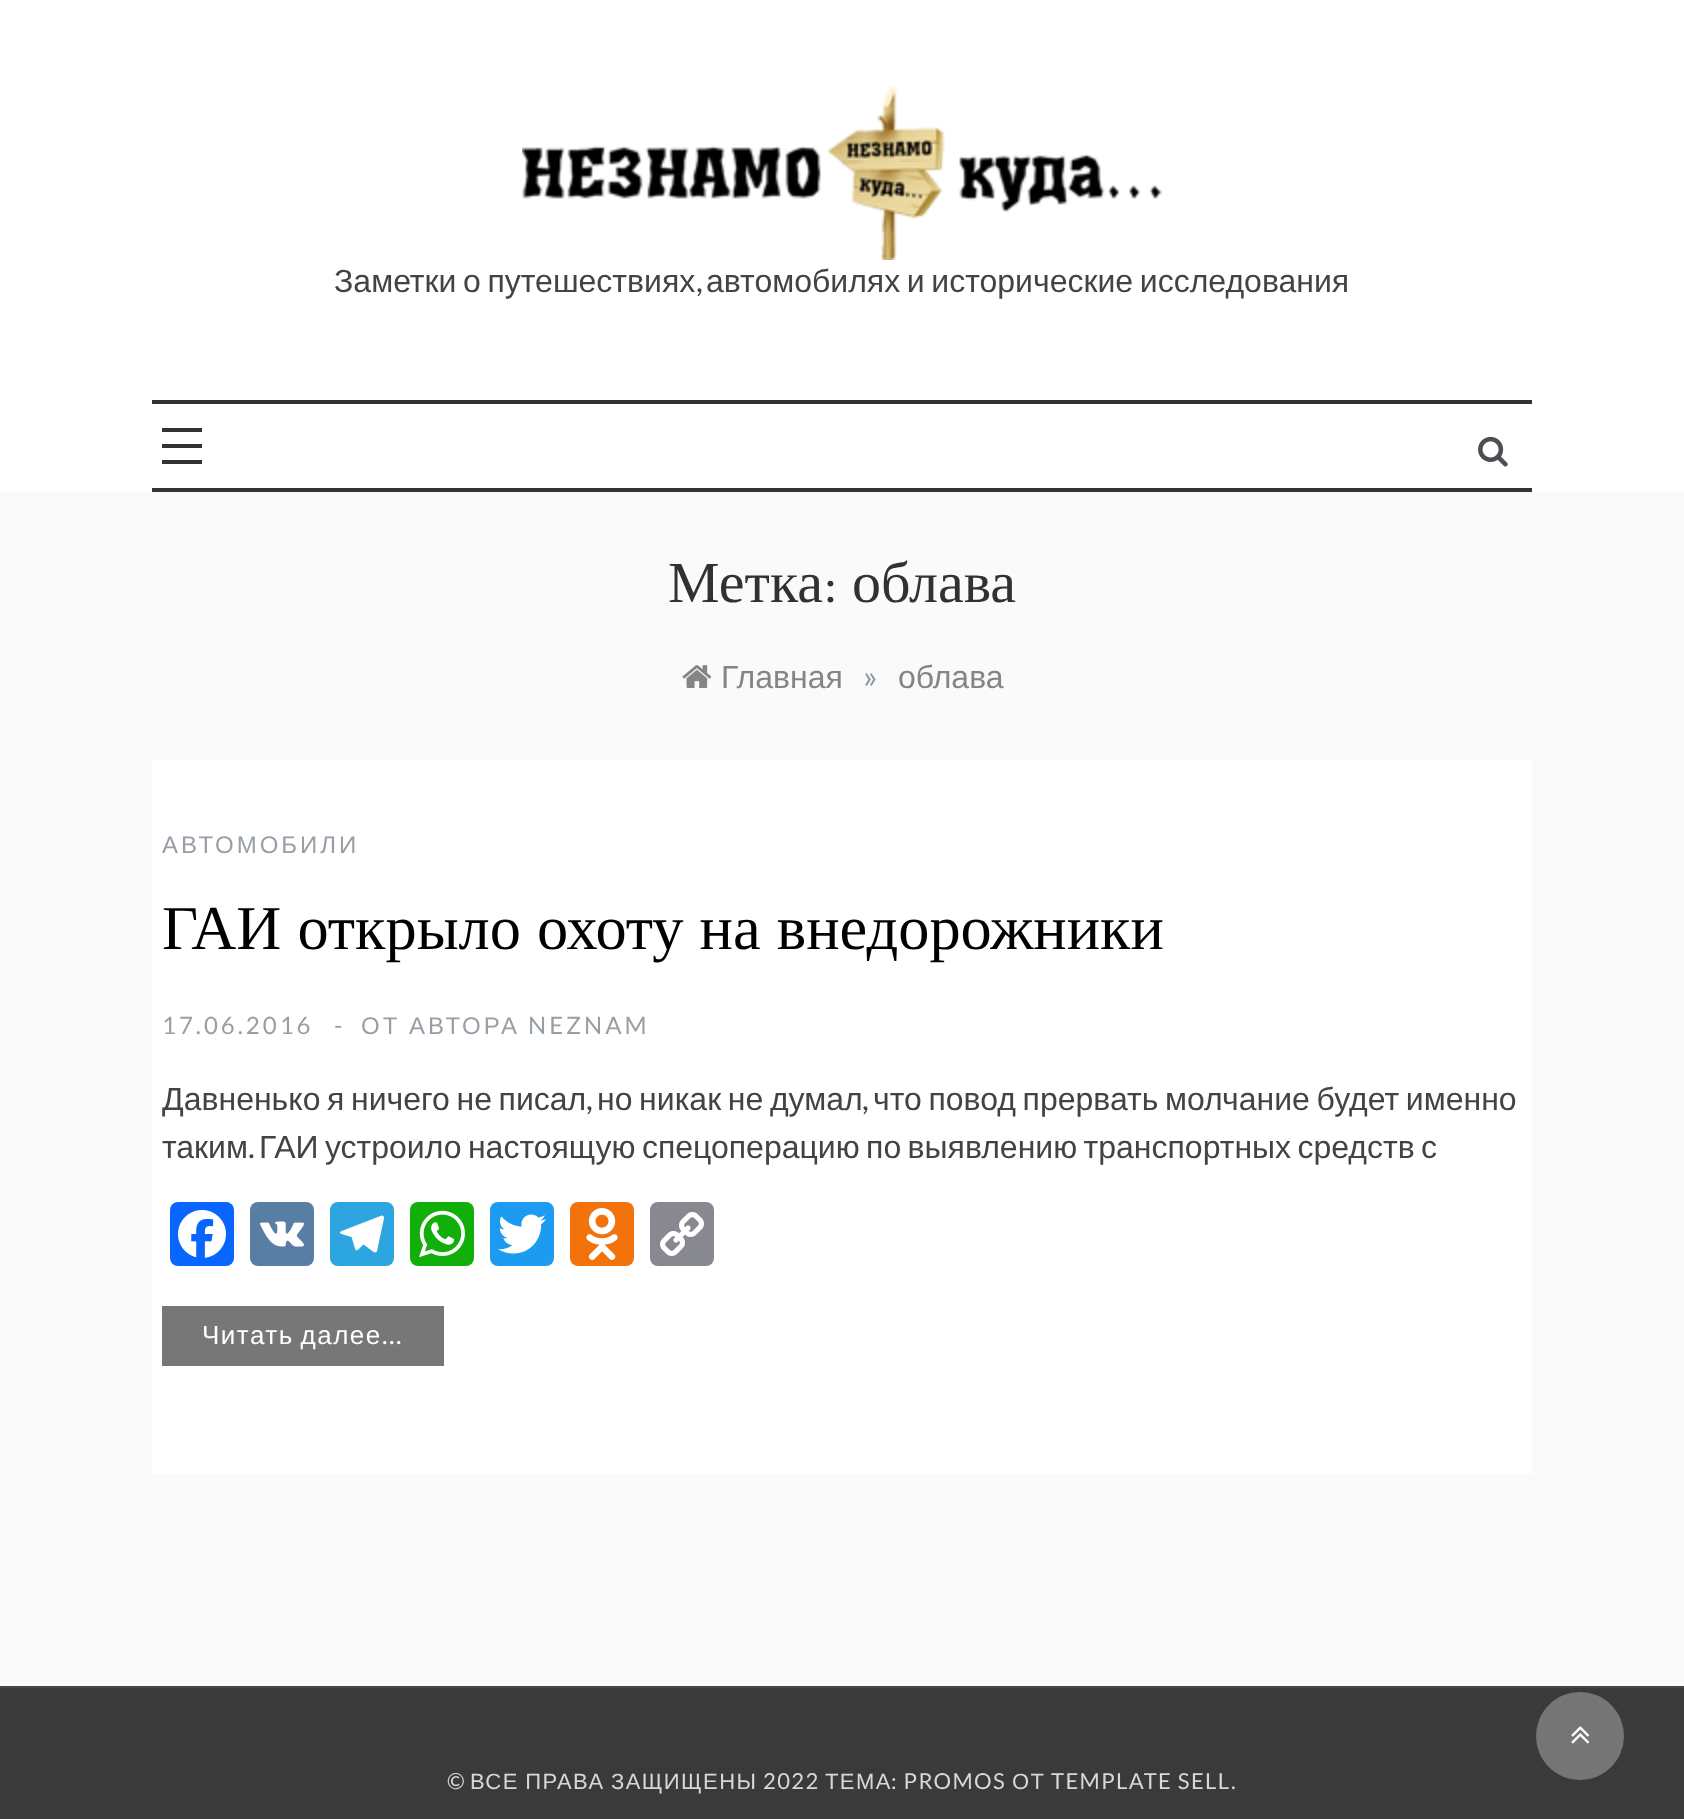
(async () => {
const canvas = document.querySelector("canvas")
canvas.width = 1684
canvas.height = 1819
const c = canvas.getContext("2d")
c.miterLimit = 4
c.fontKerning = "normal"
function T(s,x,y){c.fillText(s,x,y)}
function R(x,y,w,h){c.fillRect(x,y,w,h)}
function Q(x,y,w,h,r){c.beginPath();c.roundRect(x,y,w,h,r);c.fill()}
async function I(src,x,y,w,h){const img=new Image();img.src=src;await img.decode();c.drawImage(img,x,y,w,h)}
c.fillStyle="#fafafa"
R(0,0,1684,1819)
c.fillStyle="#fff"
R(0,0,1684,492)
await I("1.png",522,86,640,174)
c.wordSpacing="-2.25px"
c.font="32px Liberation Sans"
c.fillStyle="#434343"
T("Заметки о путешествиях",334,292)
c.wordSpacing="0px"
c.font="32px Lato"
T(",",696,292)
c.wordSpacing="-2.25px"
c.font="32px Liberation Sans"
T("автомобилях и исторические исследования",706,292)
c.fillStyle="#333"
R(152,400,1380,4)
R(152,488,1380,4)
R(162,428,40,4)
R(162,444,40,4)
R(162,460,40,4)
await I("2.png",1478,436,30,31)
c.wordSpacing="0px"
c.font="58px Liberation Serif"
c.fillStyle="#2f3235"
T("Метка",668,602)
c.font="58px Bellefair"
T(":",823,602)
c.font="58px Liberation Serif"
T("облава",852,602)
await I("3.png",682,665,30,23)
c.font="32px Liberation Sans"
c.fillStyle="#858585"
T("Главная",721,688)
c.font="32px Lato"
c.fillStyle="#8d97a1"
T("»",863,688)
c.font="32px Liberation Sans"
c.fillStyle="#858585"
T("облава",898,688)
c.fillStyle="#fff"
R(152,760,1380,714)
c.letterSpacing="3px"
c.font="24px Liberation Sans"
c.fillStyle="#989ea6"
T("АВТОМОБИЛИ",162,853)
c.letterSpacing="0px"
c.wordSpacing="0.5px"
c.font="62.4px Liberation Serif"
c.fillStyle="#000"
T("ГАИ открыло охоту на внедорожники",162,949)
c.letterSpacing="3px"
c.wordSpacing="0px"
c.font="24px Lato"
c.fillStyle="#989ea6"
T("17.06.2016",162,1034)
T("-",334,1034)
c.wordSpacing="-1px"
c.font="24px Liberation Sans"
T("ОТ АВТОРА",361,1034)
c.wordSpacing="0px"
c.font="24px Lato"
T("NEZNAM",528,1034)
c.letterSpacing="0px"
c.wordSpacing="-2.25px"
c.font="32px Liberation Sans"
c.fillStyle="#434343"
T("Давненько я ничего не писал",162,1110)
c.wordSpacing="0px"
c.font="32px Lato"
T(",",586,1110)
c.wordSpacing="-2.25px"
c.font="32px Liberation Sans"
T("но никак не думал",597,1110)
c.wordSpacing="0px"
c.font="32px Lato"
T(",",862,1110)
c.wordSpacing="-2.25px"
c.font="32px Liberation Sans"
T("что повод прервать молчание будет именно",873,1110)
c.wordSpacing="0px"
T("таким",162,1158)
c.font="32px Lato"
T(".",248,1158)
c.wordSpacing="-2.5px"
c.font="32px Liberation Sans"
T("ГАИ устроило настоящую спецоперацию по выявлению транспортных средств с",259,1158)
c.fillStyle="#0866ff"
Q(170,1202,64,64,8)
await I("4.png",178,1210,48,48)
c.fillStyle="#587ea3"
Q(250,1202,64,64,8)
await I("5.png",260,1221,44,26)
c.fillStyle="#2ca5e0"
Q(330,1202,64,64,8)
await I("6.png",340,1215,44,38)
c.fillStyle="#12af0a"
Q(410,1202,64,64,8)
await I("7.png",419,1210,46,48)
c.fillStyle="#1d9bf0"
Q(490,1202,64,64,8)
await I("8.png",498,1214,48,40)
c.fillStyle="#f2720c"
Q(570,1202,64,64,8)
await I("9.png",586,1208,32,52)
c.fillStyle="#888990"
Q(650,1202,64,64,8)
await I("10.png",660,1212,44,44)
c.fillStyle="#777"
R(162,1306,282,60)
c.letterSpacing="1.5px"
c.wordSpacing="-2px"
c.font="26px Liberation Sans"
c.fillStyle="#fff"
T("Читать далее",202,1344)
c.wordSpacing="0px"
c.font="26px Lato"
T("...",382,1344)
c.fillStyle="#3a3a3a"
R(0,1688,1684,131)
c.fillStyle="#757575"
c.beginPath()
c.arc(1580,1736,44,0,7)
c.fill()
await I("11.png",1571,1726,19,18)
c.fillStyle="#464646"
R(0,1686,1684,2)
c.letterSpacing="1.4px"
c.font="22px Lato"
c.fillStyle="#d8d8d8"
T("©",447,1789)
c.wordSpacing="-1px"
c.font="22px Liberation Sans"
T("ВСЕ ПРАВА ЗАЩИЩЕНЫ",470,1789)
c.wordSpacing="0px"
c.font="22px Lato"
T("2022",763,1789)
c.font="22px Liberation Sans"
T("ТЕМА",825,1789)
c.font="22px Lato"
T(": PROMOS",891,1789)
c.font="22px Liberation Sans"
T("ОТ",1012,1789)
c.font="22px Lato"
T("TEMPLATE SELL",1051,1789)
T(".",1231,1789)
})()
